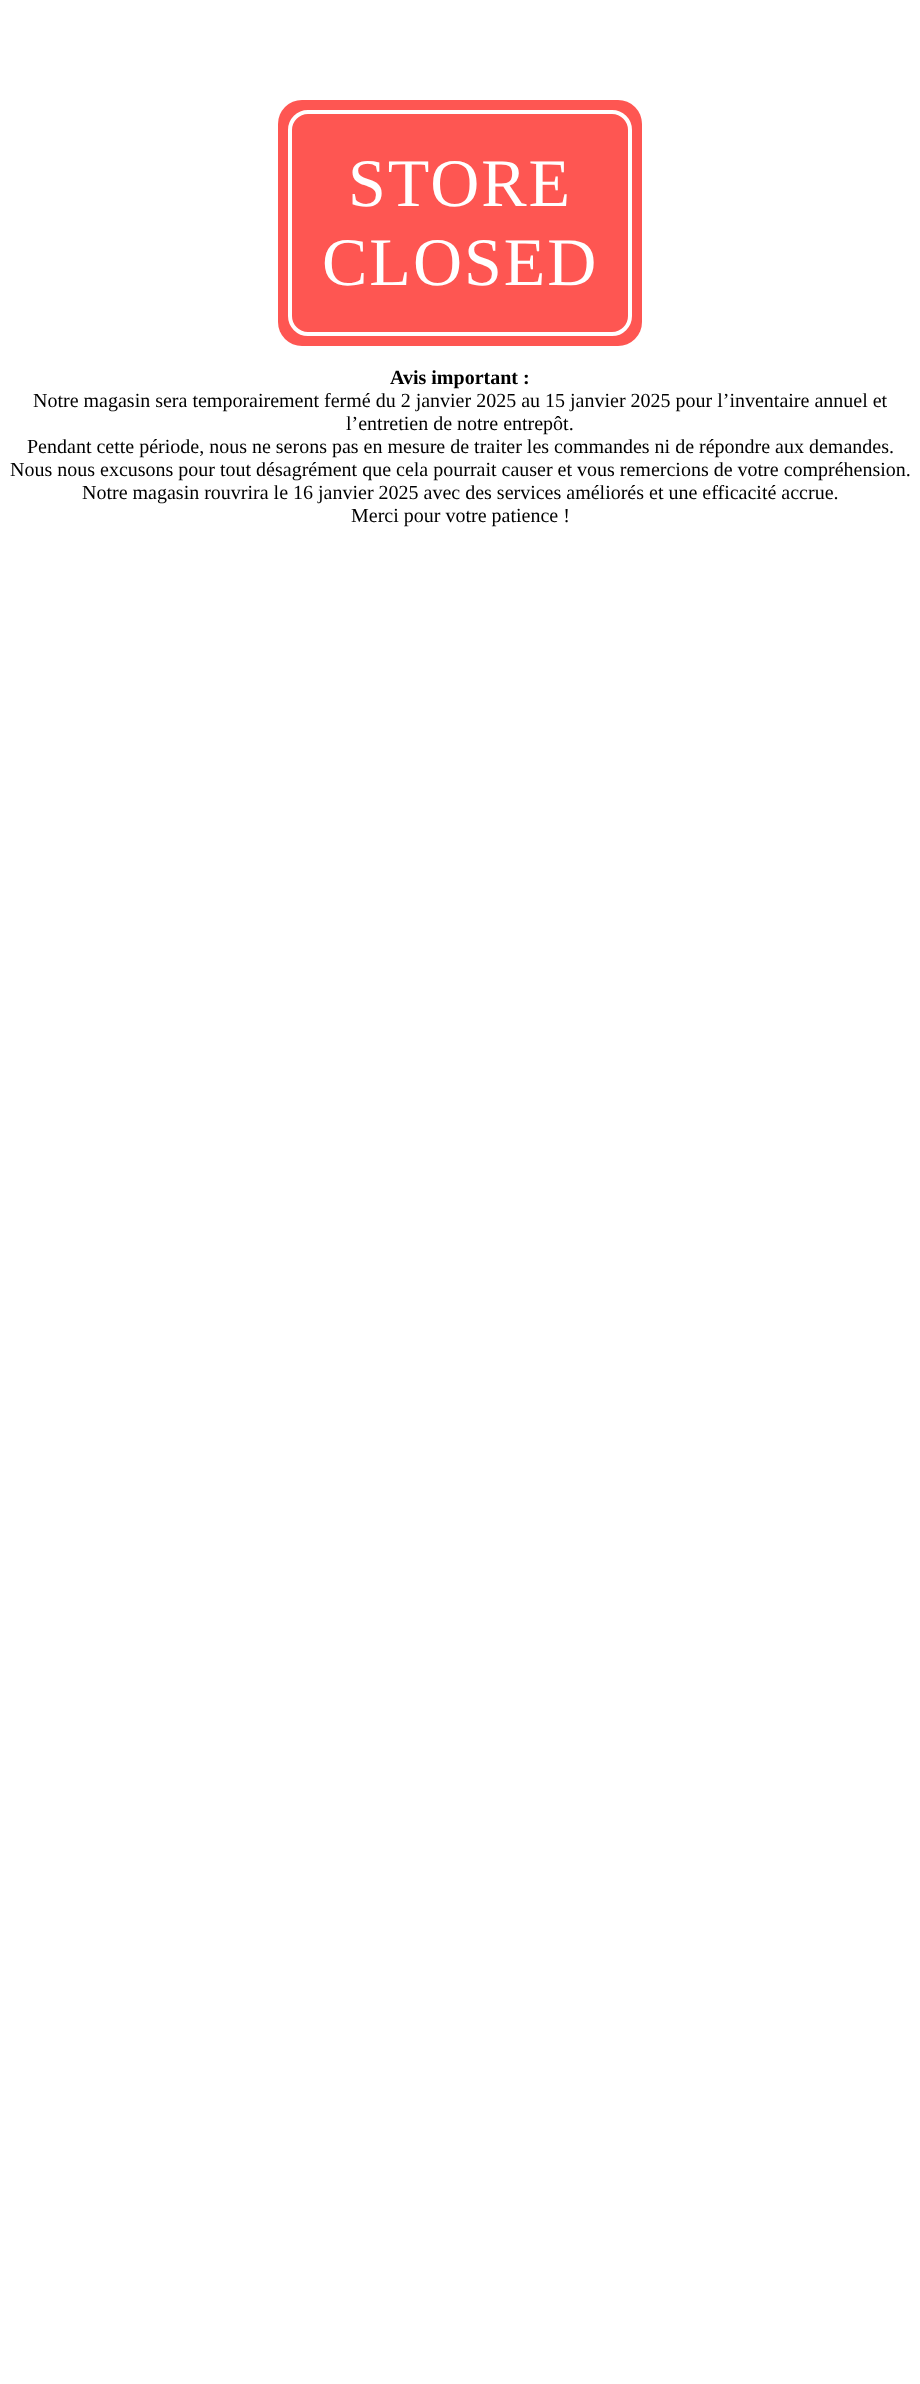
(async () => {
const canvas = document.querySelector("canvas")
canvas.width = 920
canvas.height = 2384
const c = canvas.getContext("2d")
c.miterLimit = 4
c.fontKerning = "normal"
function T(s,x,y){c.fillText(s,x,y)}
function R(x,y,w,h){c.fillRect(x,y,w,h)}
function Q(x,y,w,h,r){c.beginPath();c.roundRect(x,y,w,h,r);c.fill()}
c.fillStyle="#fff"
R(0,0,920,2384)
c.fillStyle="#fe5652"
Q(278,100,364,246,24)
c.beginPath()
c.roundRect(290,112,340,222,18)
c.strokeStyle="#fff"
c.lineWidth=4
c.stroke()
c.letterSpacing="2px"
c.font="68px Liberation Serif"
c.fillStyle="#fff"
T("STORE",348,206)
T("CLOSED",322,285)
c.letterSpacing="0px"
c.font="bold 20px Liberation Serif"
c.fillStyle="#000"
T("Avis important :",390,384)
c.font="20px Liberation Serif"
T("Notre magasin sera temporairement fermé du 2 janvier 2025 au 15 janvier 2025 pour l’inventaire annuel et",33,407)
T("l’entretien de notre entrepôt.",346,430)
T("Pendant cette période, nous ne serons pas en mesure de traiter les commandes ni de répondre aux demandes.",27,453)
T("Nous nous excusons pour tout désagrément que cela pourrait causer et vous remercions de votre compréhension.",10,476)
T("Notre magasin rouvrira le 16 janvier 2025 avec des services améliorés et une efficacité accrue.",82,499)
T("Merci pour votre patience !",351,522)
})()
